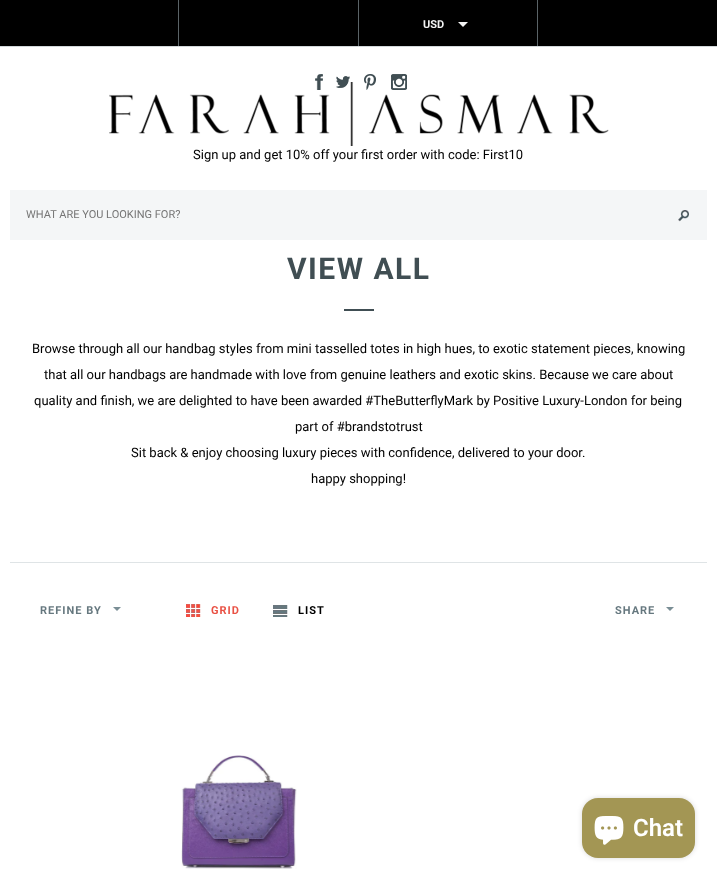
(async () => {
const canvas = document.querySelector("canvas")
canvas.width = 717
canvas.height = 879
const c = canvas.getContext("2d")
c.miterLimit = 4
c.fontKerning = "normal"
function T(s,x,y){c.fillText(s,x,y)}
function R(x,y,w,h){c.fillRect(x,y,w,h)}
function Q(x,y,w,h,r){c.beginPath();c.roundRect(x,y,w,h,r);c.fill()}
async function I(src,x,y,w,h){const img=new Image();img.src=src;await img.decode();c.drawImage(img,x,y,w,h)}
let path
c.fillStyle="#fff"
R(0,0,717,879)
c.fillStyle="#000"
R(0,0,717,46)
c.fillStyle="#d2d8db"
R(0,46,717,1)
c.fillStyle="#5a6367"
R(178,0,1,46)
R(358,0,1,46)
R(537,0,1,46)
c.font="bold 11px Roboto"
c.fillStyle="#f3f4f4"
T("USD",423,28)
path = new Path2D("M458 22h10l-5 5z")
c.fill(path)
await I("1.png",315,74,8,16)
await I("2.png",336,76,14,12)
await I("3.png",364,74,12,16)
await I("4.png",391,74,16,16)
await I("5.png",109,82,500,64)
c.font="13px Roboto"
c.fillStyle="#000"
T("Sign up and get 10% off your first order with code: First10",193,159)
c.fillStyle="#f4f6f7"
R(10,190,697,50)
c.font="11px Roboto"
c.fillStyle="#757575"
T("WHAT ARE YOU LOOKING FOR?",26,218)
await I("6.png",678,210,11,12)
c.fillStyle="#dfe4e6"
R(10,562,697,1)
c.letterSpacing="1.5px"
c.font="bold 30px Roboto"
c.fillStyle="#404e53"
T("VIEW ALL",287,279)
R(344,309,30,2)
c.letterSpacing="0px"
c.font="13px Roboto"
c.fillStyle="#000"
T("Browse through all our handbag styles from mini tasselled totes in high hues, to exotic statement pieces, knowing",32,353)
T("that all our handbags are handmade with love from genuine leathers and exotic skins. Because we care about",44,379)
T("quality and finish, we are delighted to have been awarded #TheButterflyMark by Positive Luxury-London for being",34,405)
T("part of #brandstotrust",295,431)
T("Sit back & enjoy choosing luxury pieces with confidence, delivered to your door.",131,457)
T("happy shopping!",311,483)
c.letterSpacing="1px"
c.font="bold 11px Roboto"
c.fillStyle="#66787f"
T("REFINE BY",40,614)
c.fillStyle="#7a8e95"
path = new Path2D("M113 607h8l-4 4z")
c.fill(path)
await I("7.png",186,604,15,13)
c.fillStyle="#e95144"
T("GRID",211,614)
await I("8.png",273,605,15,12)
c.fillStyle="#000"
T("LIST",298,614)
c.fillStyle="#66787f"
T("SHARE",615,614)
c.fillStyle="#7a8e95"
path = new Path2D("M666 607h8l-4 4z")
c.fill(path)
await I("9.png",181,755,116,114)
c.fillStyle="#00000026"
c.filter="blur(2.5px)"
c.beginPath()
c.roundRect(582,798,113,60,16)
c.fill()
c.filter="none"
c.fillStyle="#a39654"
Q(582,798,113,60,16)
await I("10.png",594,816,30,29)
c.letterSpacing="0px"
c.font="600 24px Roboto"
c.fillStyle="#fff"
T("Chat",633,836)
})()
